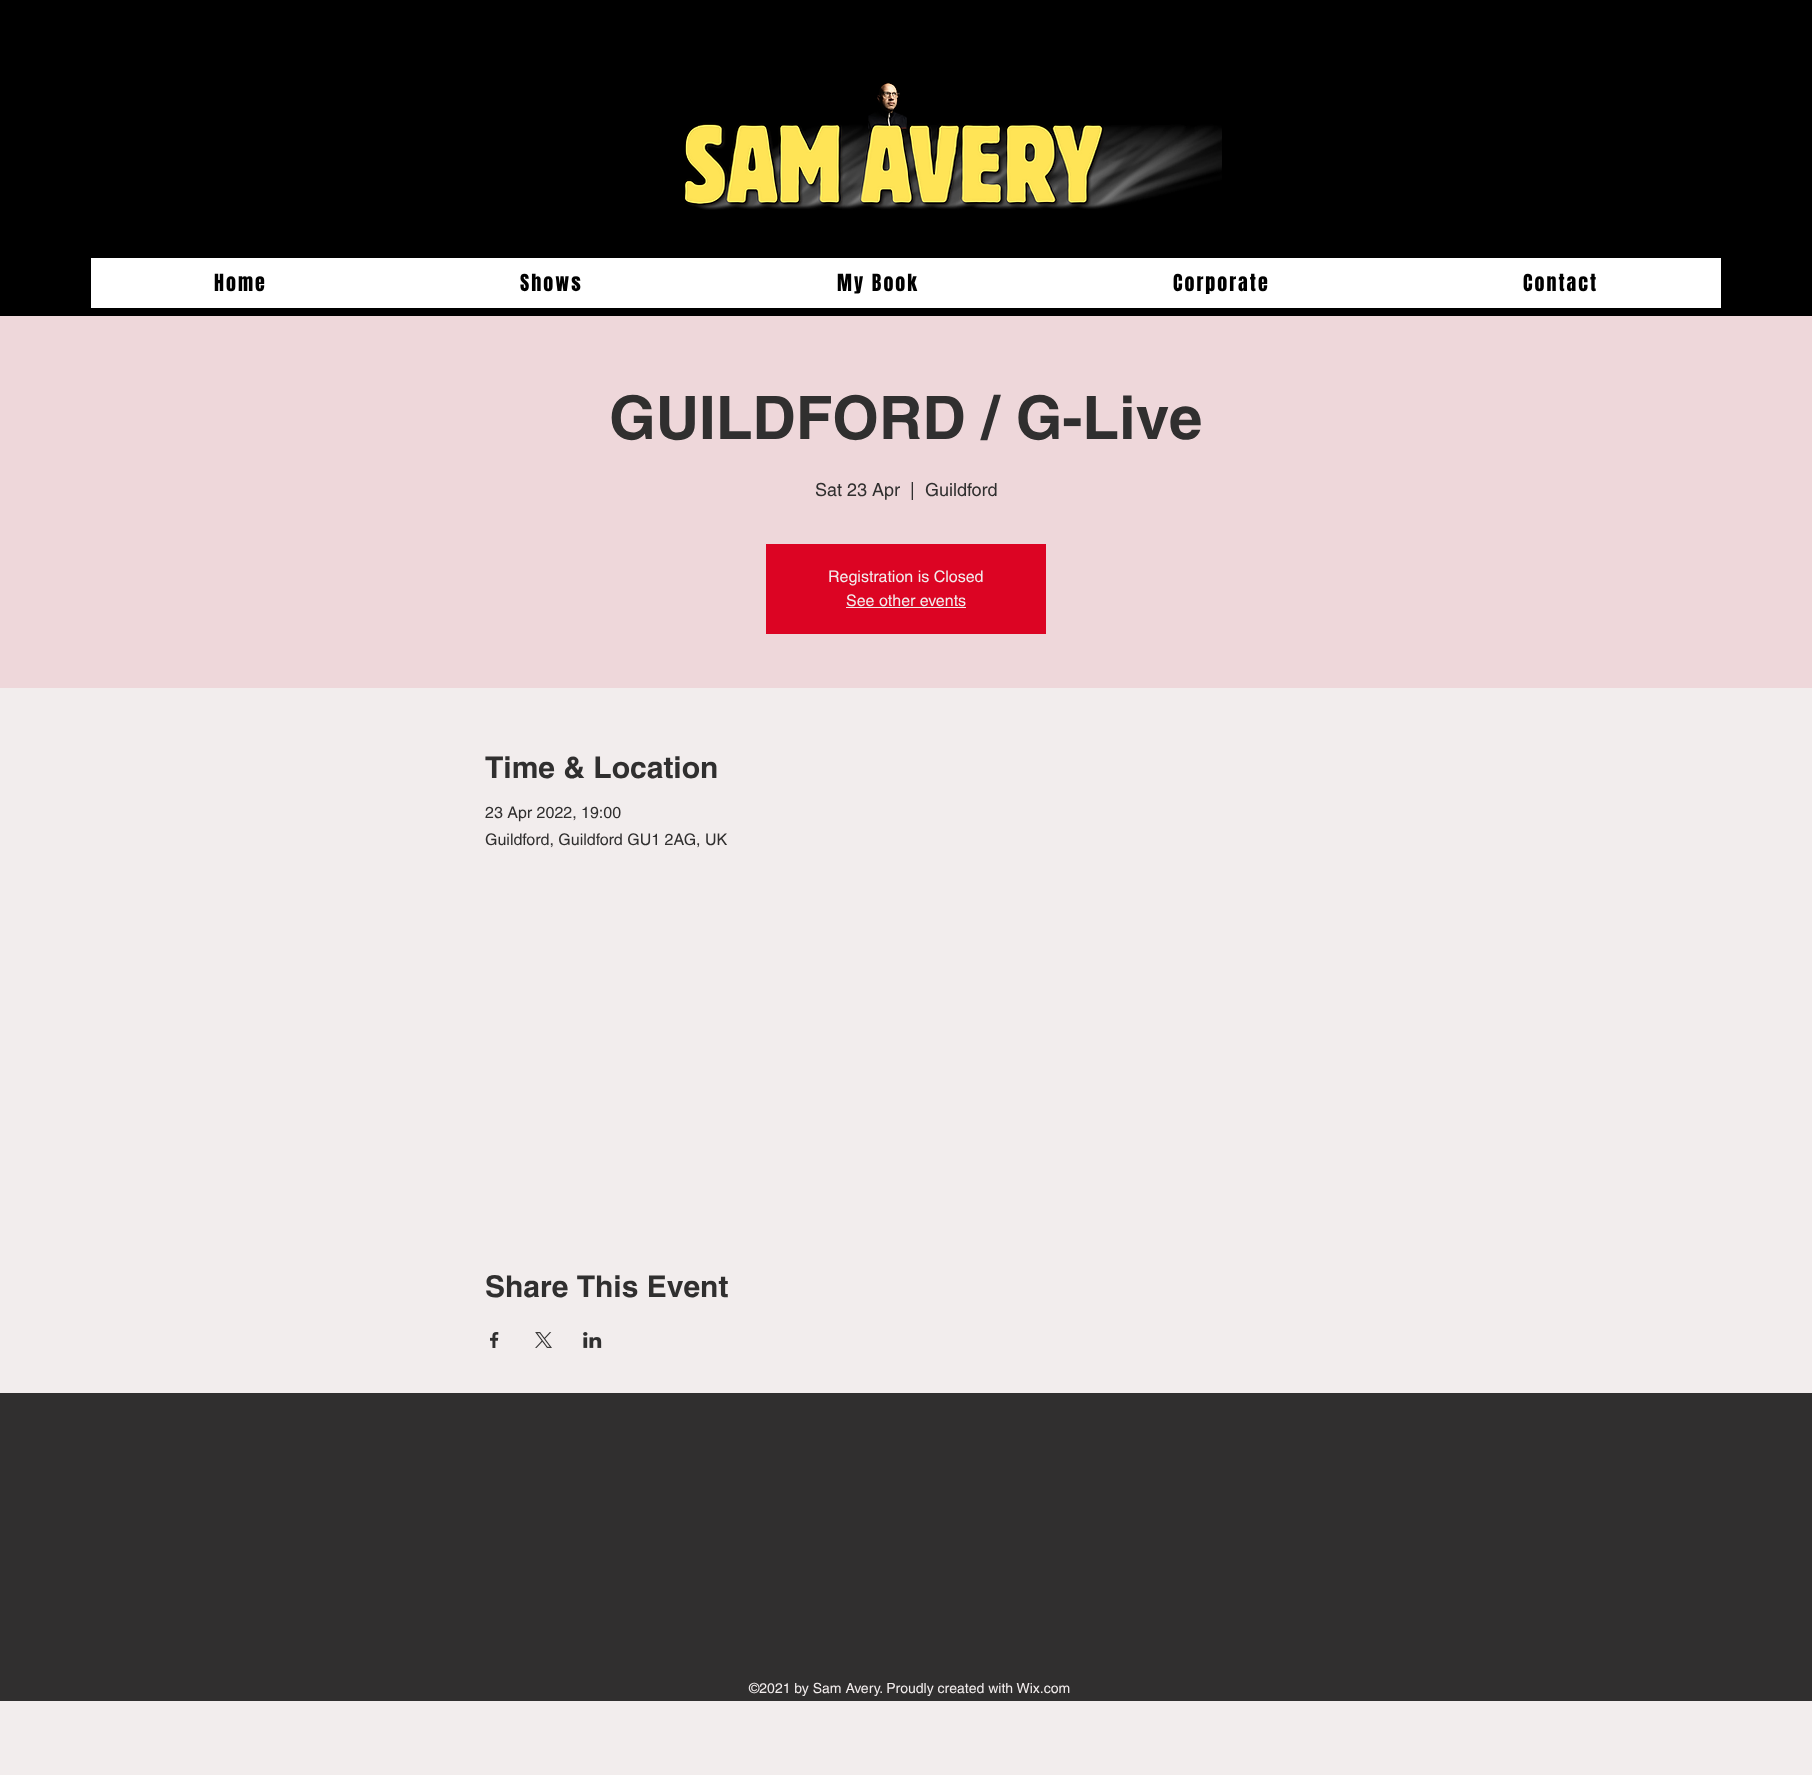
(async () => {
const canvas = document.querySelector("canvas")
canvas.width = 1812
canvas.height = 1775
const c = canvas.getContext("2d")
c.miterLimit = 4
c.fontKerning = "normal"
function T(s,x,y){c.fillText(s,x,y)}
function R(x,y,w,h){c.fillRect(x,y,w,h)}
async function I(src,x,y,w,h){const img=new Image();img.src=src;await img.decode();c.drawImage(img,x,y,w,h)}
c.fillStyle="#f2eded"
R(0,0,1812,1775)
c.fillStyle="#000"
R(0,0,1812,316)
await I("1.png",685,83,537,127)
c.fillStyle="#fff"
R(91,258,1630,50)
c.letterSpacing="2px"
c.font="20px Anton"
c.fillStyle="#000"
T("Home",214,291)
T("Shows",520,291)
T("My Book",837,291)
T("Corporate",1173,291)
T("Contact",1523,291)
c.fillStyle="#eed7da"
R(0,316,1812,372)
c.letterSpacing="0px"
c.font="bold 60px helvetica"
c.fillStyle="#302f2f"
T("GUILDFORD / G-Live",609,439)
c.font="18px helvetica"
T("Sat 23 Apr",815,496)
T("|",910,496)
T("Guildford",925,496)
c.fillStyle="#dc0423"
R(766,544,280,90)
c.font="16px helvetica"
c.fillStyle="#f2eded"
T("Registration is Closed",828,582)
T("See other events",846,606)
R(846,607,120,1)
c.font="bold 30px helvetica"
c.fillStyle="#302f2f"
T("Time & Location",485,778)
c.font="16px helvetica"
T("23 Apr 2022, 19:00",485,818)
T("Guildford, Guildford GU1 2AG, UK",485,845)
c.font="bold 30px helvetica"
T("Share This Event",485,1297)
await I("2.png",490,1332,9,16)
await I("3.png",535,1332,17,16)
await I("4.png",583,1332,19,16)
R(0,1393,1812,308)
c.font="14px helvetica"
c.fillStyle="#f2eded"
T("©2021 by Sam Avery. Proudly created with Wix.com",749,1693)
})()
